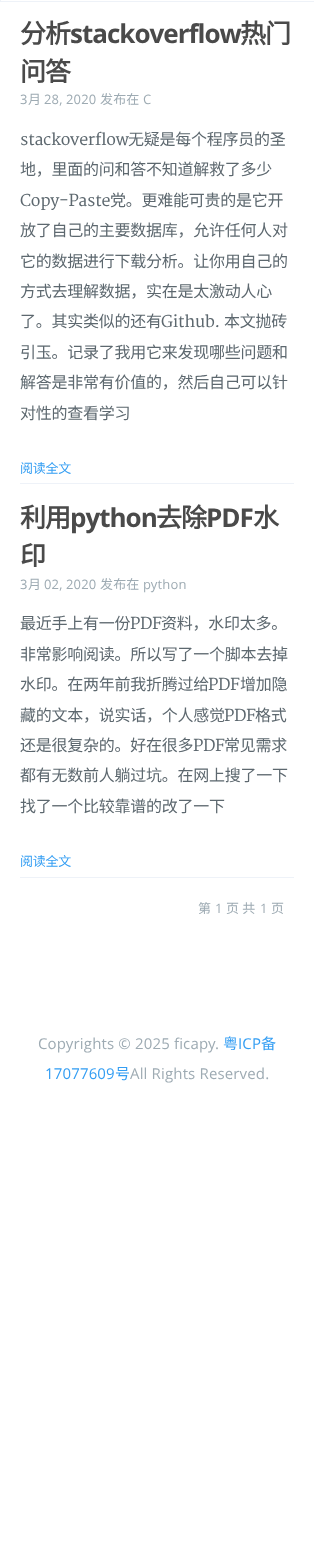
(async () => {
const canvas = document.querySelector("canvas")
canvas.width = 314
canvas.height = 1549
const c = canvas.getContext("2d")
c.miterLimit = 4
c.fontKerning = "normal"
function T(s,x,y){c.fillText(s,x,y)}
function R(x,y,w,h){c.fillRect(x,y,w,h)}
c.fillStyle="#fff"
R(0,0,314,1549)
c.strokeStyle="#eef2f8"
c.strokeRect(.5,-.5,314,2)
c.fillStyle="#eef2f8"
R(20,483,274,1)
c.letterSpacing="-1px"
c.font="bold 26px Noto Sans CJK SC"
c.fillStyle="#4a4a4a"
T("分析",20,43)
c.font="bold 26px Open Sans"
T("stackoverflow",70,43)
c.font="bold 26px Noto Sans CJK SC"
T("热门",240,43)
T("问答",20,81)
c.letterSpacing="0.15px"
c.font="13px Open Sans"
c.fillStyle="#9eabb3"
T("3",20,104)
c.font="13px Noto Sans CJK SC"
T("月",28,104)
c.font="13px Open Sans"
T("28, 2020",44,104)
c.font="13px Noto Sans CJK SC"
T("发布在",100,104)
c.font="13px Open Sans"
T("C",143,104)
c.letterSpacing="-0.25px"
c.font="16px Merriweather"
c.fillStyle="#5d686f"
T("stackoverflow",20,145)
c.font="16px Noto Sans CJK SC"
T("无疑是每个程序员的圣",128,145)
T("地，里面的问和答不知道解救了多少",20,175)
c.font="16px Merriweather"
T("Copy-Paste",20,206)
c.font="16px Noto Sans CJK SC"
T("党。更难能可贵的是它开",110,206)
T("放了自己的主要数据库，允许任何人对",20,236)
T("它的数据进行下载分析。让你用自己的",20,267)
T("方式去理解数据，实在是太激动人心",20,297)
T("了。其实类似的还有",20,327)
c.font="16px Merriweather"
T("Github.",161,327)
c.font="16px Noto Sans CJK SC"
T("本文抛砖",224,327)
T("引玉。记录了我用它来发现哪些问题和",20,358)
T("解答是非常有价值的，然后自己可以针",20,388)
T("对性的查看学习",20,419)
c.font="13px Noto Sans CJK SC"
c.fillStyle="#349ef3"
T("阅读全文",20,473)
c.fillStyle="#eef2f8"
R(20,877,274,1)
c.letterSpacing="-1px"
c.font="bold 26px Noto Sans CJK SC"
c.fillStyle="#4a4a4a"
T("利用",20,527)
c.font="bold 26px Open Sans"
T("python",70,527)
c.font="bold 26px Noto Sans CJK SC"
T("去除",156,527)
c.font="bold 26px Open Sans"
T("PDF",206,527)
c.font="bold 26px Noto Sans CJK SC"
T("水",253,527)
T("印",20,565)
c.letterSpacing="0.15px"
c.font="13px Open Sans"
c.fillStyle="#9eabb3"
T("3",20,589)
c.font="13px Noto Sans CJK SC"
T("月",28,589)
c.font="13px Open Sans"
T("02, 2020",44,589)
c.font="13px Noto Sans CJK SC"
T("发布在",100,589)
c.font="13px Open Sans"
T("python",143,589)
c.letterSpacing="-0.25px"
c.font="16px Noto Sans CJK SC"
c.fillStyle="#5d686f"
T("最近手上有一份",20,629)
c.font="16px Merriweather"
T("PDF",130,629)
c.font="16px Noto Sans CJK SC"
T("资料，水印太多。",161,629)
T("非常影响阅读。所以写了一个脚本去掉",20,660)
T("水印。在两年前我折腾过给",20,690)
c.font="16px Merriweather"
T("PDF",208,690)
c.font="16px Noto Sans CJK SC"
T("增加隐",240,690)
T("藏的文本，说实话，个人感觉",20,721)
c.font="16px Merriweather"
T("PDF",224,721)
c.font="16px Noto Sans CJK SC"
T("格式",255,721)
T("还是很复杂的。好在很多",20,751)
c.font="16px Merriweather"
T("PDF",193,751)
c.font="16px Noto Sans CJK SC"
T("常见需求",224,751)
T("都有无数前人躺过坑。在网上搜了一下",20,781)
T("找了一个比较靠谱的改了一下",20,812)
c.font="13px Noto Sans CJK SC"
c.fillStyle="#349ef3"
T("阅读全文",20,866)
c.letterSpacing="0.15px"
c.fillStyle="#9eabb3"
T("第",198,913)
c.font="13px Open Sans"
T("1",215,913)
c.font="13px Noto Sans CJK SC"
T("页 共",226,913)
c.font="13px Open Sans"
T("1",260,913)
c.font="13px Noto Sans CJK SC"
T("页",271,913)
c.font="15px Open Sans"
T("Copyrights © 2025 ficapy.",38,1049)
c.font="15px Noto Sans CJK SC"
c.fillStyle="#349ef3"
T("粤",223,1049)
c.font="15px Open Sans"
T("ICP",238,1049)
c.font="15px Noto Sans CJK SC"
T("备",261,1049)
c.font="15px Open Sans"
T("17077609",45,1079)
c.font="15px Noto Sans CJK SC"
T("号",115,1079)
c.font="15px Open Sans"
c.fillStyle="#9eabb3"
T("All Rights Reserved.",130,1079)
})()
